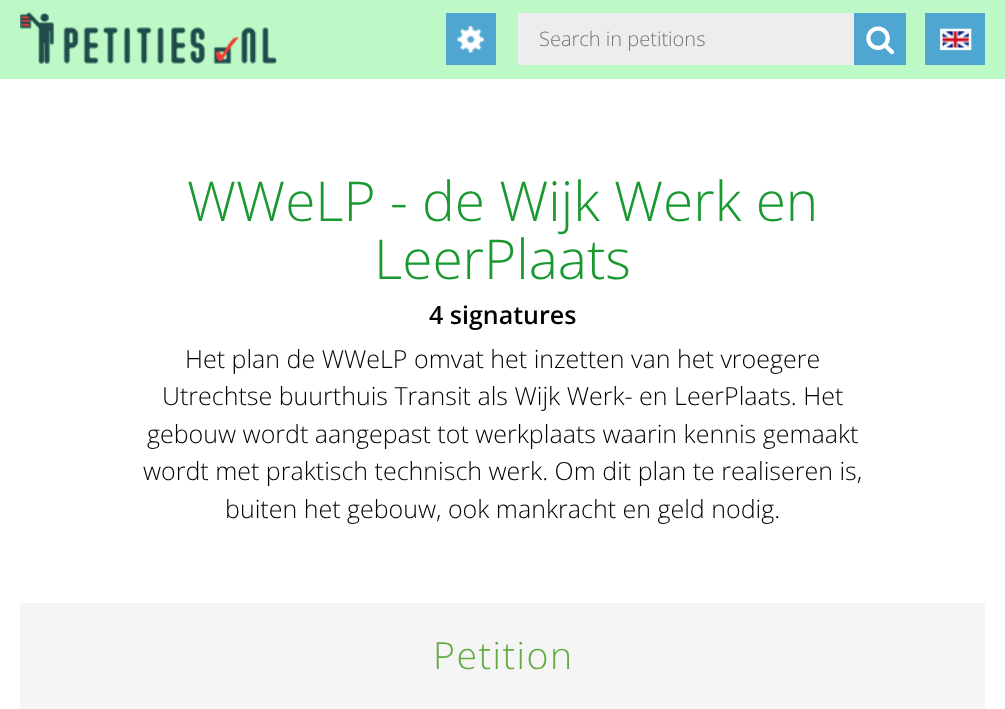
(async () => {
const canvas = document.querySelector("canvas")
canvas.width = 1005
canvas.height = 709
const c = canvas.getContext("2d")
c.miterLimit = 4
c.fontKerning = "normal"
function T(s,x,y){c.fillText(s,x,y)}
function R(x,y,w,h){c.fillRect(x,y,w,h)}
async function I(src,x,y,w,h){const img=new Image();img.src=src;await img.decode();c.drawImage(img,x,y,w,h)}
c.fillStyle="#fff"
R(0,0,1005,709)
c.fillStyle="#bcf9c7"
R(0,0,1005,79)
await I("1.png",20,12,257,52)
c.fillStyle="#4fa6d0"
R(446,13,50,52)
await I("2.png",457,26,27,27)
c.fillStyle="#ecedec"
R(518,13,336,52)
c.font="300 20px Open Sans"
c.fillStyle="#757575"
T("Search in petitions",539,46)
c.fillStyle="#4fa6d0"
R(854,13,52,52)
await I("3.png",866,26,29,29)
R(925,13,60,52)
await I("4.png",939,28,33,23)
c.font="300 55px Open Sans"
c.fillStyle="#1a9931"
T("WWeLP - de Wijk Werk en",187,221)
T("LeerPlaats",374,279)
c.font="600 25px Open Sans"
c.fillStyle="#000"
T("4 signatures",429,324)
c.font="300 25px Open Sans"
T("Het plan de WWeLP omvat het inzetten van het vroegere",185,368)
T("Utrechtse buurthuis Transit als Wijk Werk- en LeerPlaats. Het",162,405)
T("gebouw wordt aangepast tot werkplaats waarin kennis gemaakt",147,443)
T("wordt met praktisch technisch werk. Om dit plan te realiseren is,",143,480)
T("buiten het gebouw, ook mankracht en geld nodig.",225,518)
c.fillStyle="#f5f5f5"
R(20,603,965,106)
c.letterSpacing="1.5px"
c.font="300 37.5px Open Sans"
c.fillStyle="#63ab42"
T("Petition",433,669)
})()
